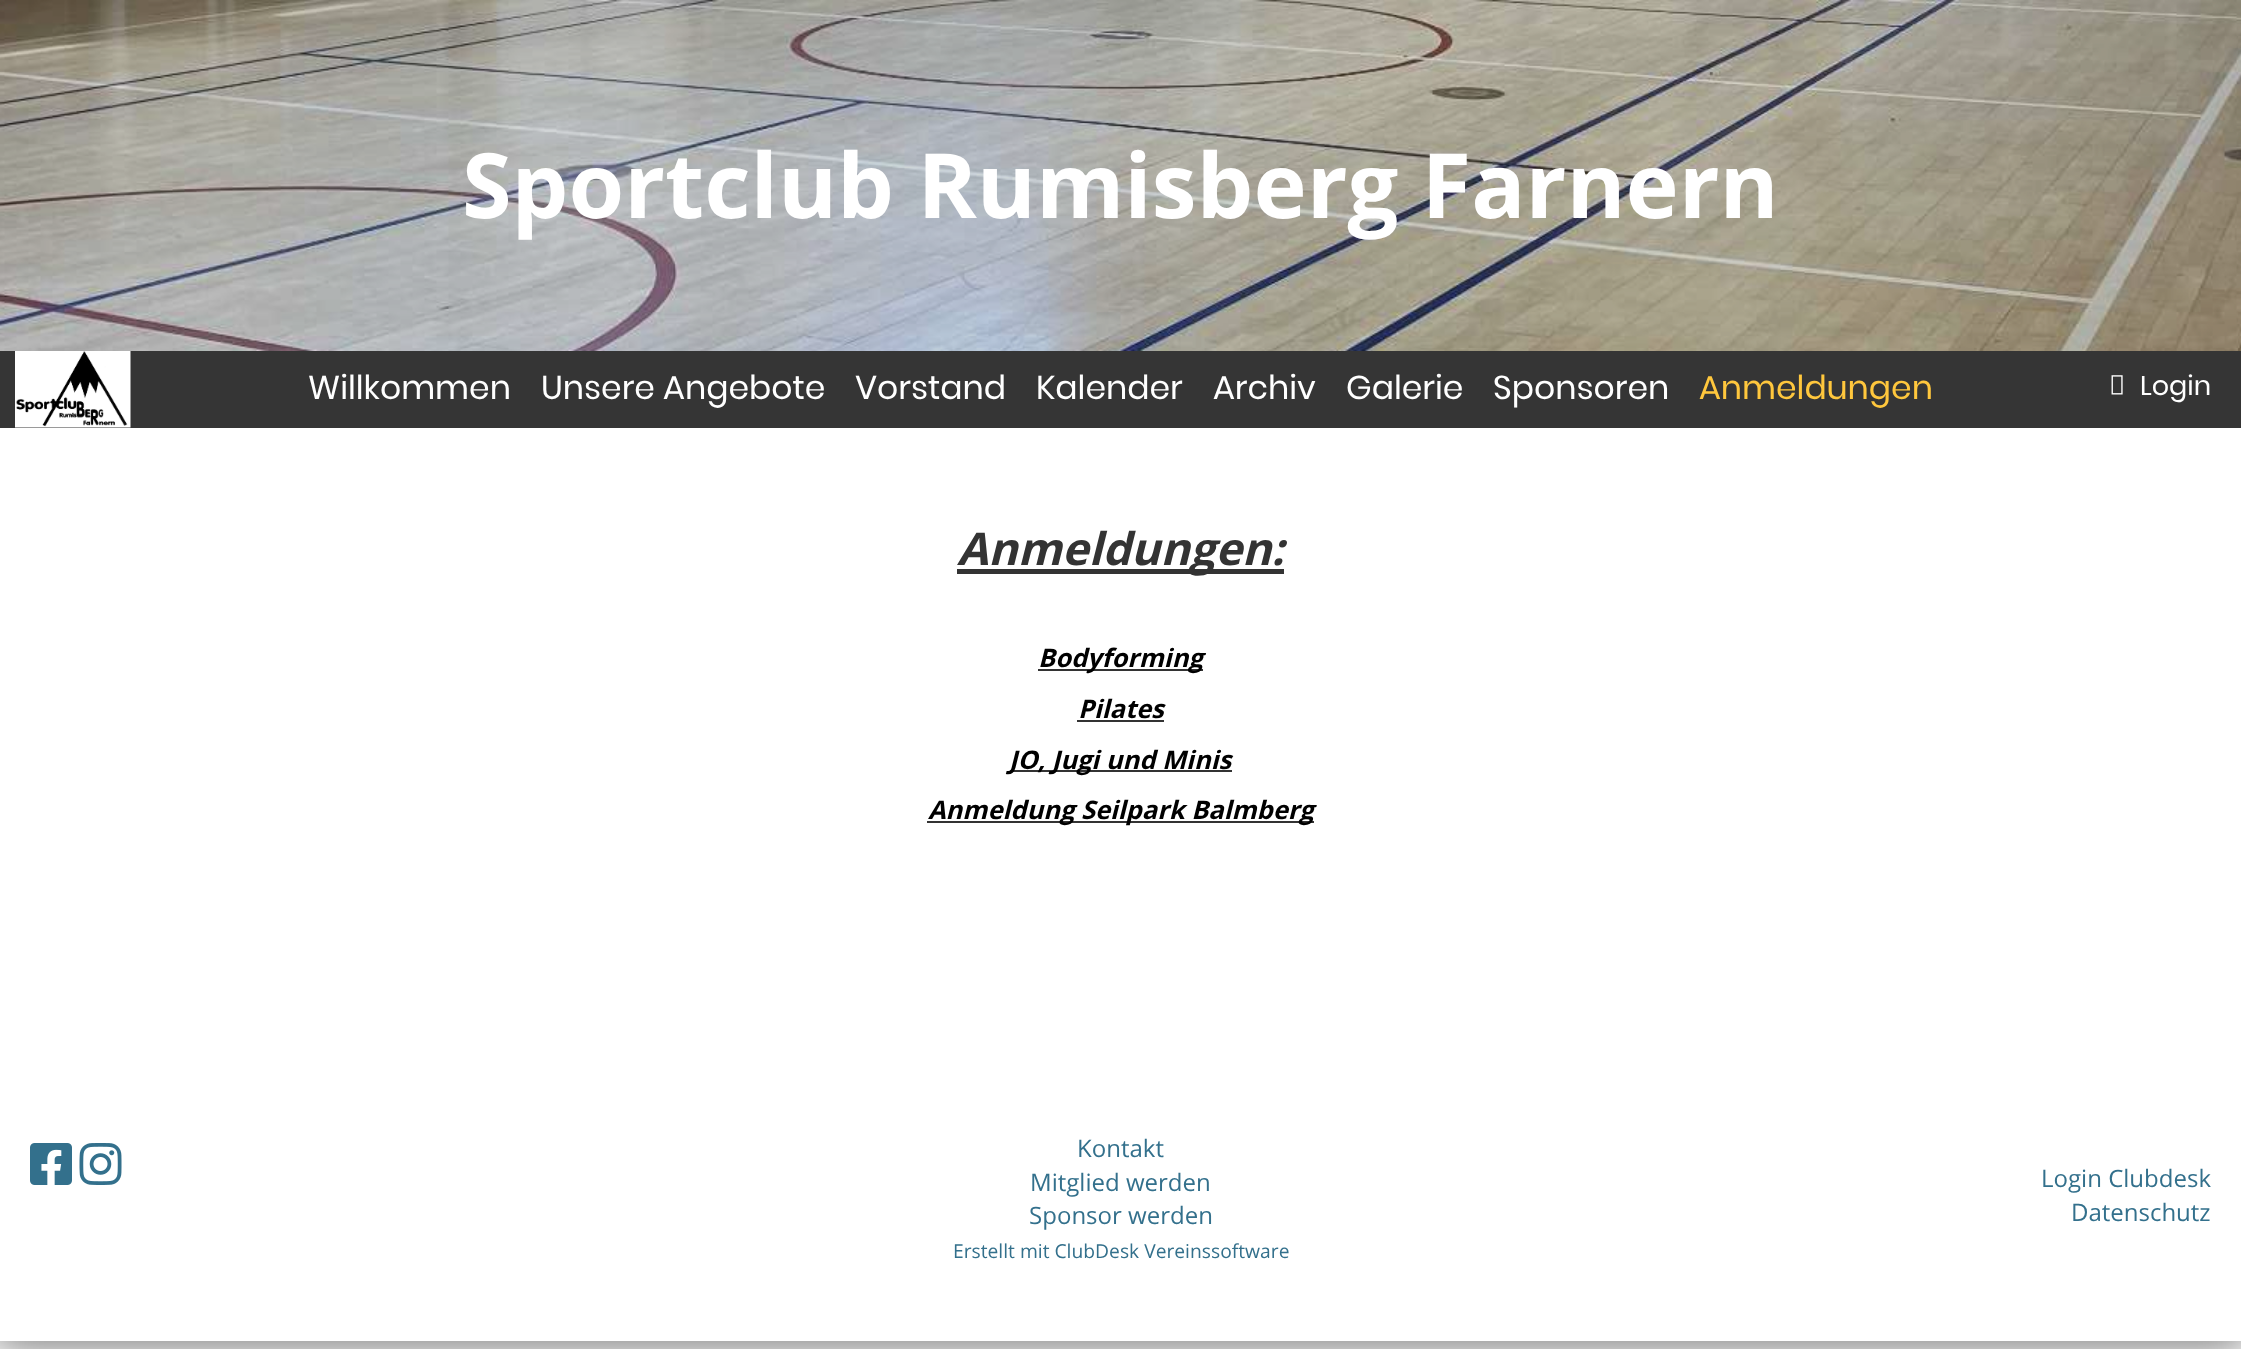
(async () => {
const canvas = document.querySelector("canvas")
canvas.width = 2241
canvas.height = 1349
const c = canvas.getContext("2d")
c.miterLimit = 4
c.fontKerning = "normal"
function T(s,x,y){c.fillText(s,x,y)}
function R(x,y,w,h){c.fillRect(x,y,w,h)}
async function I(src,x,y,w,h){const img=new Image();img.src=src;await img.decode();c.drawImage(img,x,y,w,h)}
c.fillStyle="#fff"
R(0,0,2241,1349)
await I("1.png",0,0,2241,351)
c.save()
c.beginPath()
c.rect(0,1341,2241,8)
c.clip()
c.fillStyle="#00000080"
c.filter="blur(22.5px)"
c.beginPath()
c.rect(-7,-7,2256,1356)
c.fill()
c.filter="none"
c.restore()
c.font="bold 90px Open Sans"
T("Sportclub Rumisberg Farnern",462,218)
c.fillStyle="#353535"
R(0,351,2241,77)
await I("2.png",15,351,116,77)
c.font="33px Poppins"
c.fillStyle="#fff"
T("Willkommen",308,399)
T("Unsere Angebote",541,399)
T("Vorstand",855,399)
T("Kalender",1036,399)
T("Archiv",1213,399)
T("Galerie",1346,399)
T("Sponsoren",1493,399)
c.fillStyle="#ffc73d"
T("Anmeldungen",1699,399)
await I("3.png",2111,375,12,20)
c.font="27px Poppins"
c.fillStyle="#fff"
T("Login",2140,395)
c.fillStyle="#333"
R(957,569,327,5)
c.font="italic bold 45px Open Sans"
T("Anmeldungen:",957,565)
R(1038,669,165,2)
c.font="italic bold 25.5px Open Sans"
c.fillStyle="#000"
T("Bodyforming",1038,667)
T("Pilates",1078,718)
c.fillStyle="#333"
R(1077,720,87,2)
R(1010,770,222,2)
c.fillStyle="#000"
T("JO, Jugi und Minis",1009,769)
c.fillStyle="#333"
R(927,821,387,2)
c.fillStyle="#000"
T("Anmeldung Seilpark Balmberg",928,819)
await I("4.png",30,1143,42,42)
await I("5.png",79,1143,43,42)
c.font="24px Open Sans"
c.fillStyle="#33708c"
T("Kontakt",1077,1157)
T("Mitglied werden",1030,1191)
T("Sponsor werden",1029,1224)
c.font="19.25px Open Sans"
T("Erstellt mit ClubDesk Vereinssoftware",953,1258)
c.font="24px Open Sans"
T("Login Clubdesk",2041,1187)
T("Datenschutz",2071,1221)
})()
